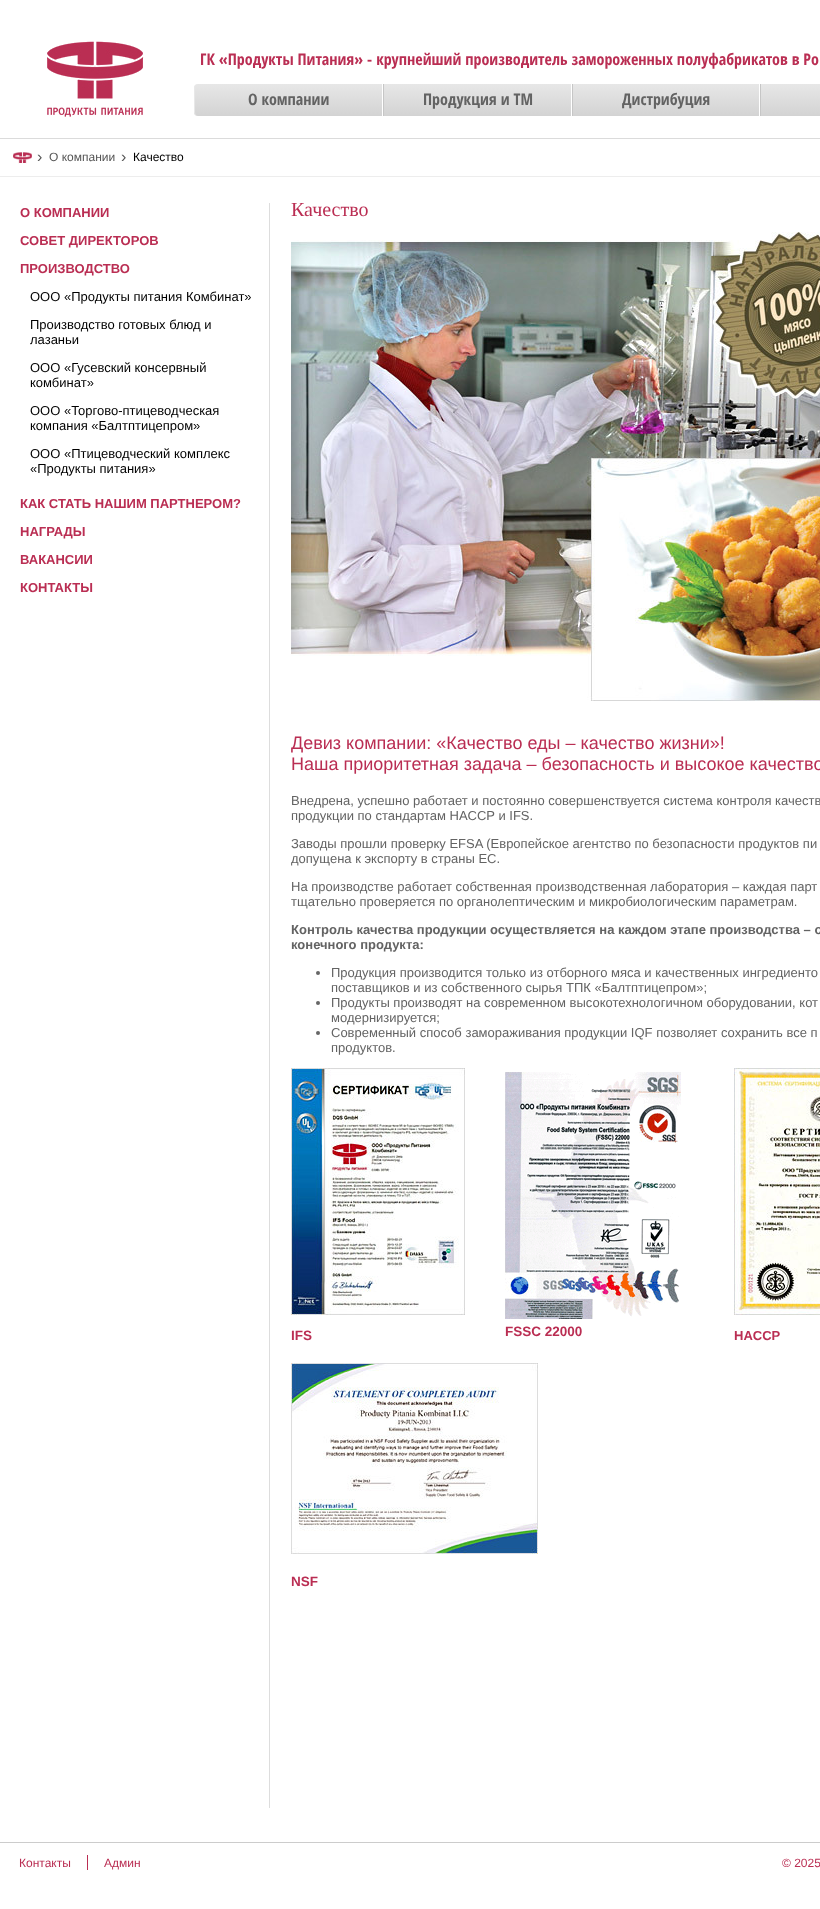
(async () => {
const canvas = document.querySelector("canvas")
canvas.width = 820
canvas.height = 1909
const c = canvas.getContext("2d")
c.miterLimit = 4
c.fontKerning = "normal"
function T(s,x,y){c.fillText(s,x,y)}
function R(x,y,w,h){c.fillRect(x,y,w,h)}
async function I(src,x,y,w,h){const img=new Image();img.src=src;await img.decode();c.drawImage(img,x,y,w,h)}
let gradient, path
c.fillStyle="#fff"
R(0,0,820,1909)
c.fillStyle="#ddd"
R(269,203,1,1605)
await I("1.png",47,41,97,76)
c.font="bold 16px Open Sans Condensed"
c.fillStyle="#ba2e53"
T("ГК «Продукты Питания» - крупнейший производитель замороженных полуфабрикатов в Ро",200,65)
gradient = c.createLinearGradient(289,84,289,116)
gradient.addColorStop(0,"#e7e7e7")
gradient.addColorStop(1,"#d3d3d3")
c.fillStyle = gradient
c.beginPath()
c.roundRect(194,84,190,32,[4,0,0,4])
c.fill()
c.fillStyle="#e8e8e8"
path = new Path2D("M194 112c0 2 2 4 4 4c-2 0-3-2-3-4v-24c0-2 1-4 3-4c-2 0-4 2-4 4z")
c.fill(path)
c.fillStyle="#636363"
T("О компании",248,105)
c.fillStyle="#fff"
R(382,84,1,32)
gradient = c.createLinearGradient(478,84,478,116)
gradient.addColorStop(0,"#e7e7e7")
gradient.addColorStop(1,"#d3d3d3")
c.fillStyle = gradient
R(384,84,187,32)
c.fillStyle="#c6c6c6"
R(383,84,1,32)
c.fillStyle="#636363"
T("Продукция и ТМ",423,105)
gradient = c.createLinearGradient(667,84,667,116)
gradient.addColorStop(0,"#e7e7e7")
gradient.addColorStop(1,"#d3d3d3")
c.fillStyle = gradient
R(573,84,186,32)
c.fillStyle="#c6c6c6"
R(572,84,1,32)
c.fillStyle="#636363"
T("Дистрибуция",622,105)
gradient = c.createLinearGradient(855,84,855,116)
gradient.addColorStop(0,"#e7e7e7")
gradient.addColorStop(1,"#d3d3d3")
c.fillStyle = gradient
R(761,84,59,32)
c.fillStyle="#c6c6c6"
R(760,84,1,32)
c.fillStyle="#dbdbdb"
R(0,138,820,1)
c.fillStyle="#ededed"
R(0,176,820,1)
await I("2.png",13,152,19,12)
c.font="16px Liberation Sans"
c.fillStyle="#555"
T("›",37,162)
c.font="12px Liberation Sans"
T("О компании",49,161)
c.font="16px Liberation Sans"
T("›",121,162)
c.font="12px Liberation Sans"
c.fillStyle="#000"
T("Качество",133,161)
c.font="bold 13px Liberation Sans"
c.fillStyle="#ba2e53"
T("О КОМПАНИИ",20,217)
T("СОВЕТ ДИРЕКТОРОВ",20,245)
T("ПРОИЗВОДСТВО",20,273)
c.font="13px Liberation Sans"
c.fillStyle="#000"
T("ООО «Продукты питания Комбинат»",30,301)
T("Производство готовых блюд и",30,329)
T("лазаньи",30,344)
T("ООО «Гусевский консервный",30,372)
T("комбинат»",30,387)
T("ООО «Торгово-птицеводческая",30,415)
T("компания «Балтптицепром»",30,430)
T("ООО «Птицеводческий комплекс",30,458)
T("«Продукты питания»",30,473)
c.font="bold 13px Liberation Sans"
c.fillStyle="#ba2e53"
T("КАК СТАТЬ НАШИМ ПАРТНЕРОМ?",20,508)
T("НАГРАДЫ",20,536)
T("ВАКАНСИИ",20,564)
T("КОНТАКТЫ",20,592)
c.font="20px Liberation Serif"
T("Качество",291,216)
await I("3.png",291,232,529,469)
c.font="18px Liberation Sans"
T("Девиз компании: «Качество еды – качество жизни»!",291,749)
T("Наша приоритетная задача – безопасность и высокое качество",291,770)
c.font="13px Liberation Sans"
c.fillStyle="#636363"
T("Внедрена, успешно работает и постоянно совершенствуется система контроля качеств",291,805)
T("продукции по стандартам HACCP и IFS.",291,820)
T("Заводы прошли проверку EFSA (Европейское агентство по безопасности продуктов пи",291,848)
T("допущена к экспорту в страны ЕС.",291,863)
T("На производстве работает собственная производственная лаборатория – каждая парт",291,891)
T("тщательно проверяется по органолептическим и микробиологическим параметрам.",291,906)
c.font="bold 13px Liberation Sans"
T("Контроль качества продукции осуществляется на каждом этапе производства – о",291,934)
T("конечного продукта:",291,949)
c.fillStyle="#666"
c.beginPath()
c.arc(318,973,2,0,7)
c.fill()
c.font="13px Liberation Sans"
c.fillStyle="#636363"
T("Продукция производится только из отборного мяса и качественных ингредиенто",331,977)
T("поставщиков и из собственного сырья ТПК «Балтптицепром»;",331,992)
c.fillStyle="#666"
c.beginPath()
c.arc(318,1003,2,0,7)
c.fill()
c.fillStyle="#636363"
T("Продукты производят на современном высокотехнологичном оборудовании, кот",331,1007)
T("модернизируется;",331,1022)
c.fillStyle="#666"
c.beginPath()
c.arc(318,1033,2,0,7)
c.fill()
c.fillStyle="#636363"
T("Современный способ замораживания продукции IQF позволяет сохранить все п",331,1037)
T("продуктов.",331,1052)
await I("4.png",291,1068,174,247)
c.font="bold 13.5px Liberation Sans"
c.fillStyle="#ba2e53"
T("IFS",291,1340)
await I("5.png",505,1072,176,247)
T("FSSC 22000",505,1336)
await I("6.png",734,1068,86,247)
c.font="bold 13px Liberation Sans"
T("HACCP",734,1340)
await I("7.png",291,1363,247,191)
c.font="bold 13.5px Liberation Sans"
T("NSF",291,1586)
c.fillStyle="#ccc"
R(0,1842,820,1)
c.fillStyle="#ba2e53"
R(87,1855,1,15)
c.font="12px Liberation Sans"
T("Контакты",19,1867)
T("Админ",104,1867)
T("© 2025",782,1867)
})()
